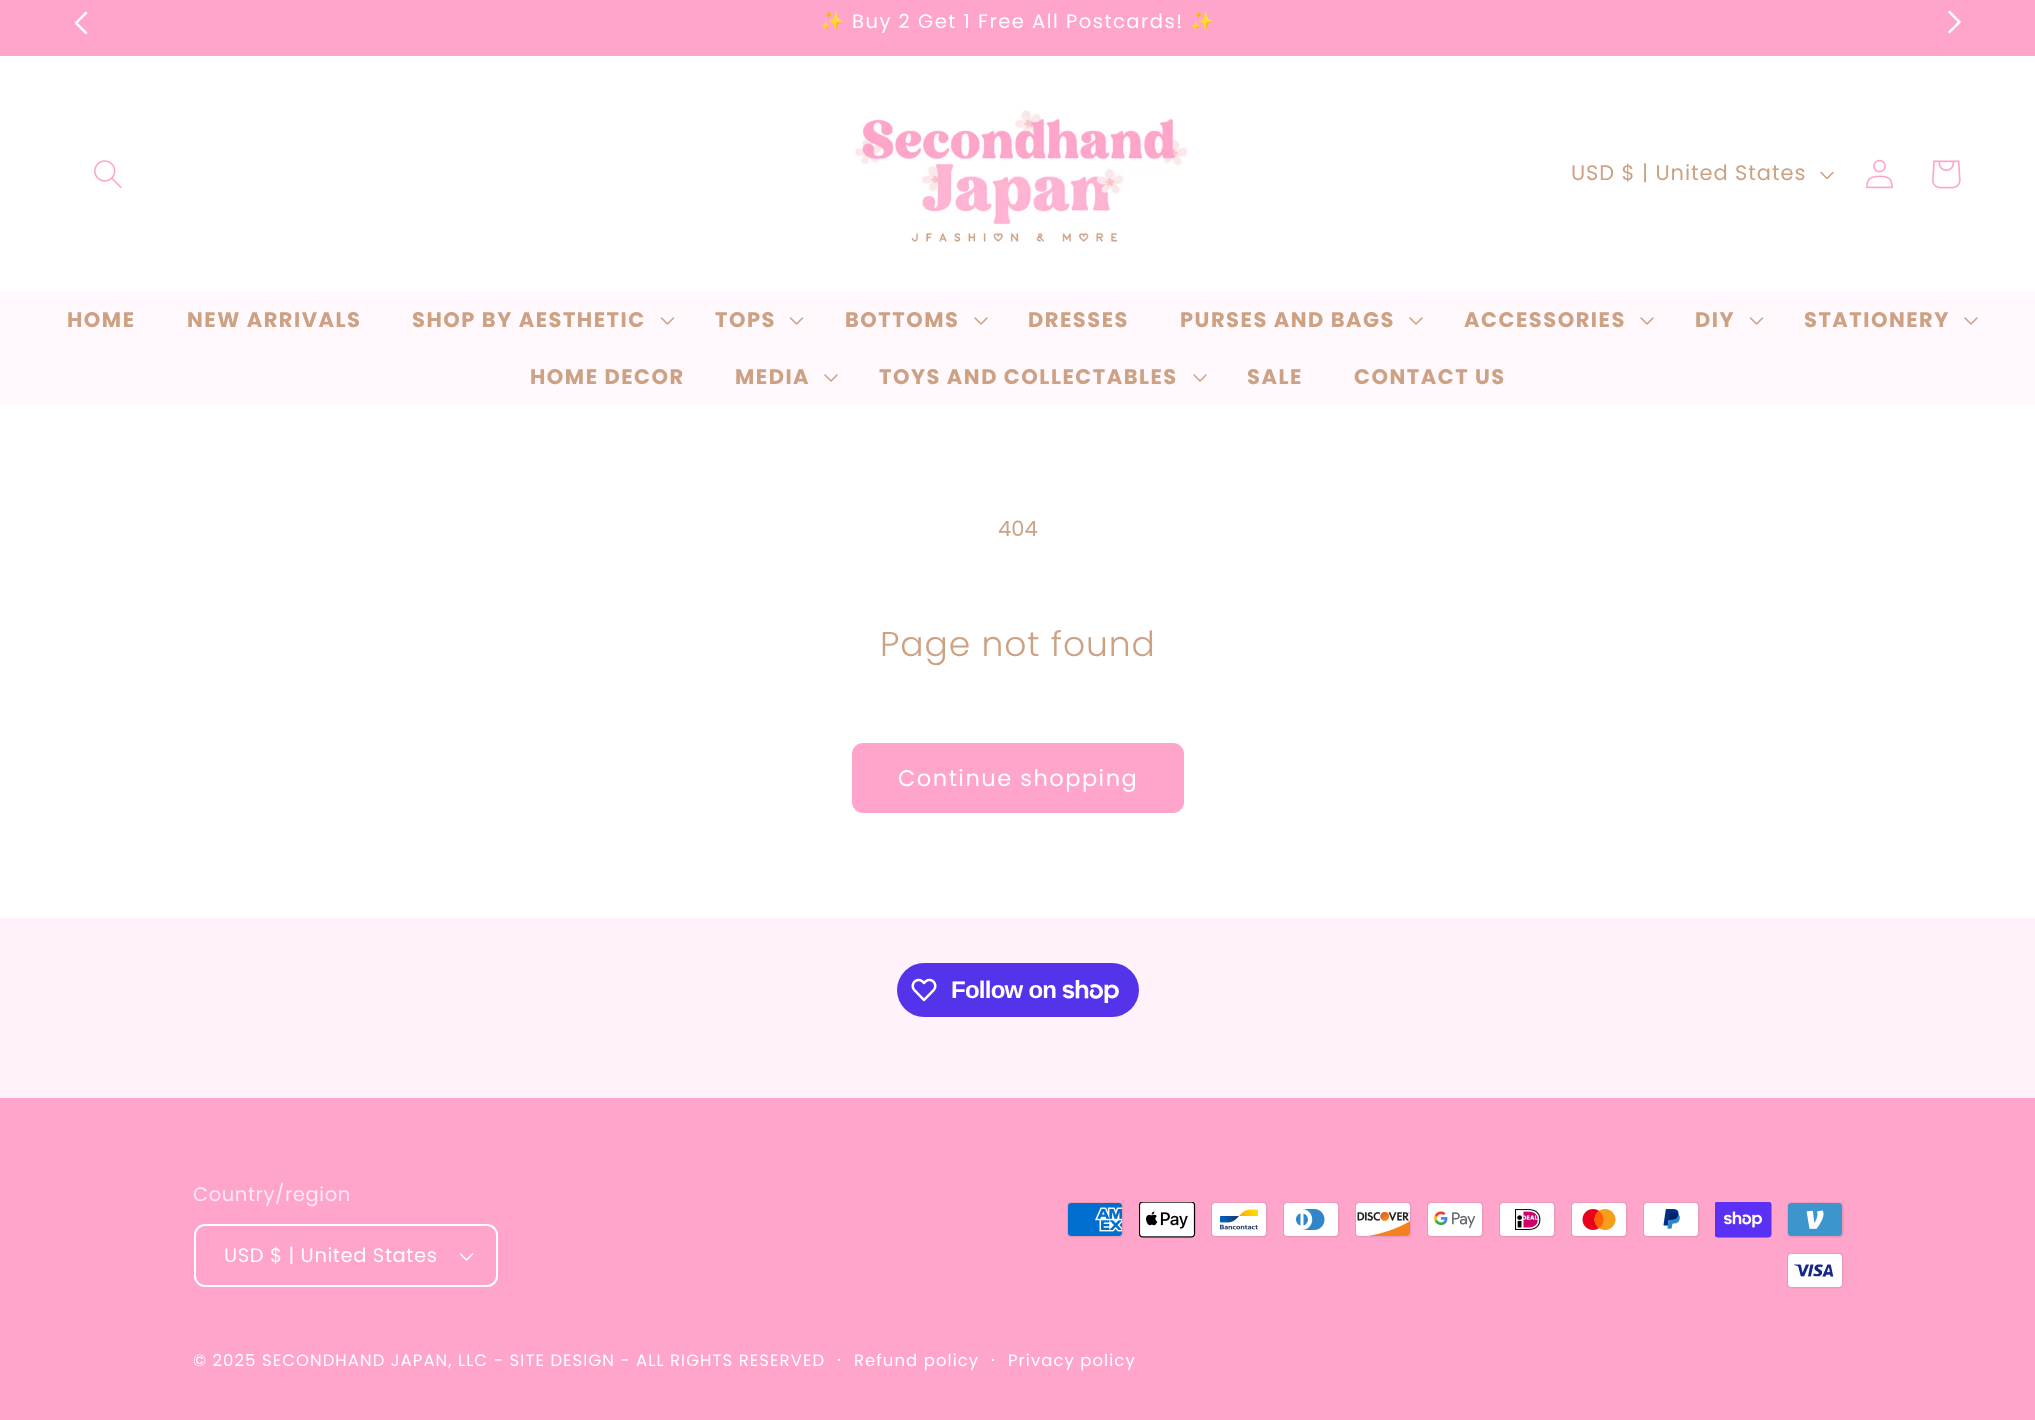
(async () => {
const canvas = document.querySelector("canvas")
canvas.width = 2035
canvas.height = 1420
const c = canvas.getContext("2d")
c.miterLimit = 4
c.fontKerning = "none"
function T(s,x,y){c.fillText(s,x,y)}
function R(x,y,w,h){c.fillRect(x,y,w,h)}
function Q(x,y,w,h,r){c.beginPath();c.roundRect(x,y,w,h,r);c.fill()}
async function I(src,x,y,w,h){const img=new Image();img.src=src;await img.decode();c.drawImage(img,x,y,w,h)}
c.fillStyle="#fff"
R(0,0,2035,1420)
c.fillStyle="#ffa5cb"
R(0,0,2035,56)
await I("1.png",74,11,14,24)
c.letterSpacing="1.5px"
c.font="19.5px Noto Color Emoji"
c.fillStyle="#fff"
T("✨",820,28)
c.font="19.5px Poppins"
T("Buy 2 Get 1 Free All Postcards!",852,28)
c.font="19.5px Noto Color Emoji"
T("✨",1190,28)
await I("2.png",1948,10,13,24)
await I("3.png",94,160,28,28)
await I("4.png",855,110,333,133)
c.letterSpacing="0.9px"
c.font="21px Poppins"
c.fillStyle="#cca184"
T("USD $ | United States",1571,180)
await I("5.png",1820,171,14,9)
await I("6.png",1866,159,27,30)
await I("7.png",1932,160,29,29)
c.fillStyle="#fff8fc"
R(0,291,2035,114)
c.letterSpacing="1.5px"
c.font="bold 21px Poppins"
c.fillStyle="#cca184"
T("HOME",67,327)
T("NEW ARRIVALS",187,327)
T("SHOP BY AESTHETIC",412,327)
await I("8.png",660,317,15,8)
T("TOPS",715,327)
await I("8.png",789,317,15,8)
T("BOTTOMS",845,327)
await I("9.png",974,317,14,8)
T("DRESSES",1028,327)
T("PURSES AND BAGS",1180,327)
await I("9.png",1409,317,14,8)
T("ACCESSORIES",1464,327)
await I("9.png",1640,317,14,8)
T("DIY",1695,327)
await I("8.png",1749,317,15,8)
T("STATIONERY",1804,327)
await I("9.png",1964,317,14,8)
T("HOME DECOR",530,384)
T("MEDIA",735,384)
await I("9.png",824,374,14,8)
T("TOYS AND COLLECTABLES",879,384)
await I("9.png",1193,374,14,8)
T("SALE",1247,384)
T("CONTACT US",1354,384)
c.letterSpacing="0px"
c.font="21px Poppins"
T("404",998,536)
c.letterSpacing="0.9px"
c.font="300 34.5px Poppins"
T("Page not found",880,656)
c.fillStyle="#ffa5cb"
Q(852,743,332,70,11)
c.letterSpacing="1.5px"
c.font="22.5px Poppins"
c.fillStyle="#fff"
T("Continue shopping",898,786)
c.fillStyle="#fff2fa"
R(0,918,2035,180)
c.fillStyle="#5433eb"
Q(897,963,242,54,27)
await I("10.png",911,978,26,24)
c.letterSpacing="-0.75px"
c.font="bold 24px Liberation Sans"
c.fillStyle="#fff"
T("Follow on",951,998)
await I("11.png",1062,980,57,23)
c.fillStyle="#ffa5cb"
R(0,1098,2035,322)
c.letterSpacing="0.6px"
c.font="19.5px Poppins"
c.fillStyle="#ffe9f2"
T("Country/region",193,1201)
await I("12.png",459,1253,15,8)
c.beginPath()
c.roundRect(195,1225,302,61,10)
c.strokeStyle="#fff"
c.lineWidth=2
c.stroke()
c.fillStyle="#fff"
T("USD $ | United States",224,1262)
await I("13.png",1067,1202,57,36)
await I("14.png",1139,1202,57,36)
await I("15.png",1211,1202,57,36)
await I("16.png",1283,1202,57,36)
await I("17.png",1355,1202,57,36)
await I("18.png",1427,1202,57,36)
await I("19.png",1499,1202,57,36)
await I("20.png",1571,1202,57,36)
await I("21.png",1643,1202,57,36)
await I("22.png",1715,1202,57,36)
await I("23.png",1787,1202,57,36)
await I("24.png",1787,1253,57,36)
c.letterSpacing="1.05px"
c.font="16.5px Poppins"
T("© 2025 SECONDHAND JAPAN, LLC",193,1366)
T("- SITE DESIGN - ALL RIGHTS RESERVED",494,1366)
c.font="18px Poppins"
T("·",837,1366)
c.font="16.5px Poppins"
T("Refund policy",854,1366)
c.font="18px Poppins"
T("·",991,1366)
c.font="16.5px Poppins"
T("Privacy policy",1008,1366)
})()
